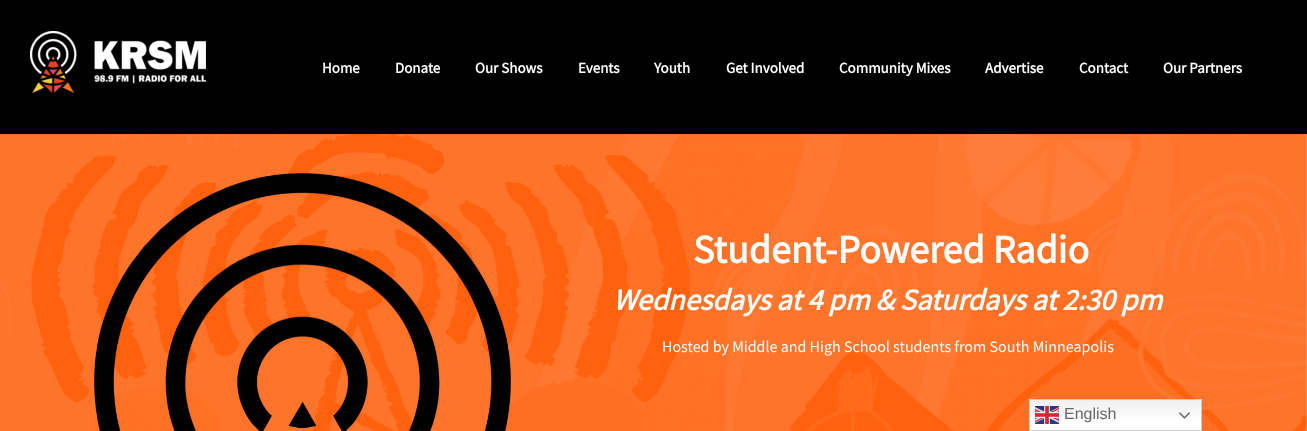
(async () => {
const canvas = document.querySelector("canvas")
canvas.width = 1307
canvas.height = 431
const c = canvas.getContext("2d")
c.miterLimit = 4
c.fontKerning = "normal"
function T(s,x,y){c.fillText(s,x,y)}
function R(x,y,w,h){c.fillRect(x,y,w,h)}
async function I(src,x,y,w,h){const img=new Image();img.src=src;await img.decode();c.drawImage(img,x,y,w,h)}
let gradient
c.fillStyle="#fff"
R(0,0,1307,431)
c.fillStyle="#000"
R(0,0,1307,134)
await I("1.png",30,31,176,62)
c.font="bold 15px Source Sans Pro"
c.fillStyle="#fff"
T("Home",322,73)
T("Donate",395,73)
T("Our Shows",475,73)
T("Events",578,73)
T("Youth",654,73)
T("Get Involved",726,73)
T("Community Mixes",839,73)
T("Advertise",985,73)
T("Contact",1079,73)
T("Our Partners",1163,73)
await I("2.png",0,134,1307,297)
await I("3.png",94,173,417,258)
c.font="bold 40px Source Sans Pro"
T("Student-Powered Radio",693,263)
c.font="italic bold 30px Source Sans Pro"
T("Wednesdays at 4 pm & Saturdays at 2:30 pm",613,310)
c.font="16px Source Sans Pro"
T("Hosted by Middle and High School students from South Minneapolis",662,352)
gradient = c.createLinearGradient(1116,399,1116,431)
gradient.addColorStop(0,"#efefef")
gradient.addColorStop(.7,"#fff")
c.fillStyle = gradient
R(1030,400,171,30)
c.strokeStyle="#ccc"
c.strokeRect(1029.5,399.5,172,31)
await I("4.png",1035,406,24,18)
c.font="16px Liberation Sans"
c.fillStyle="#666"
T("English",1064,419)
await I("5.png",1179,412,11,7)
})()
